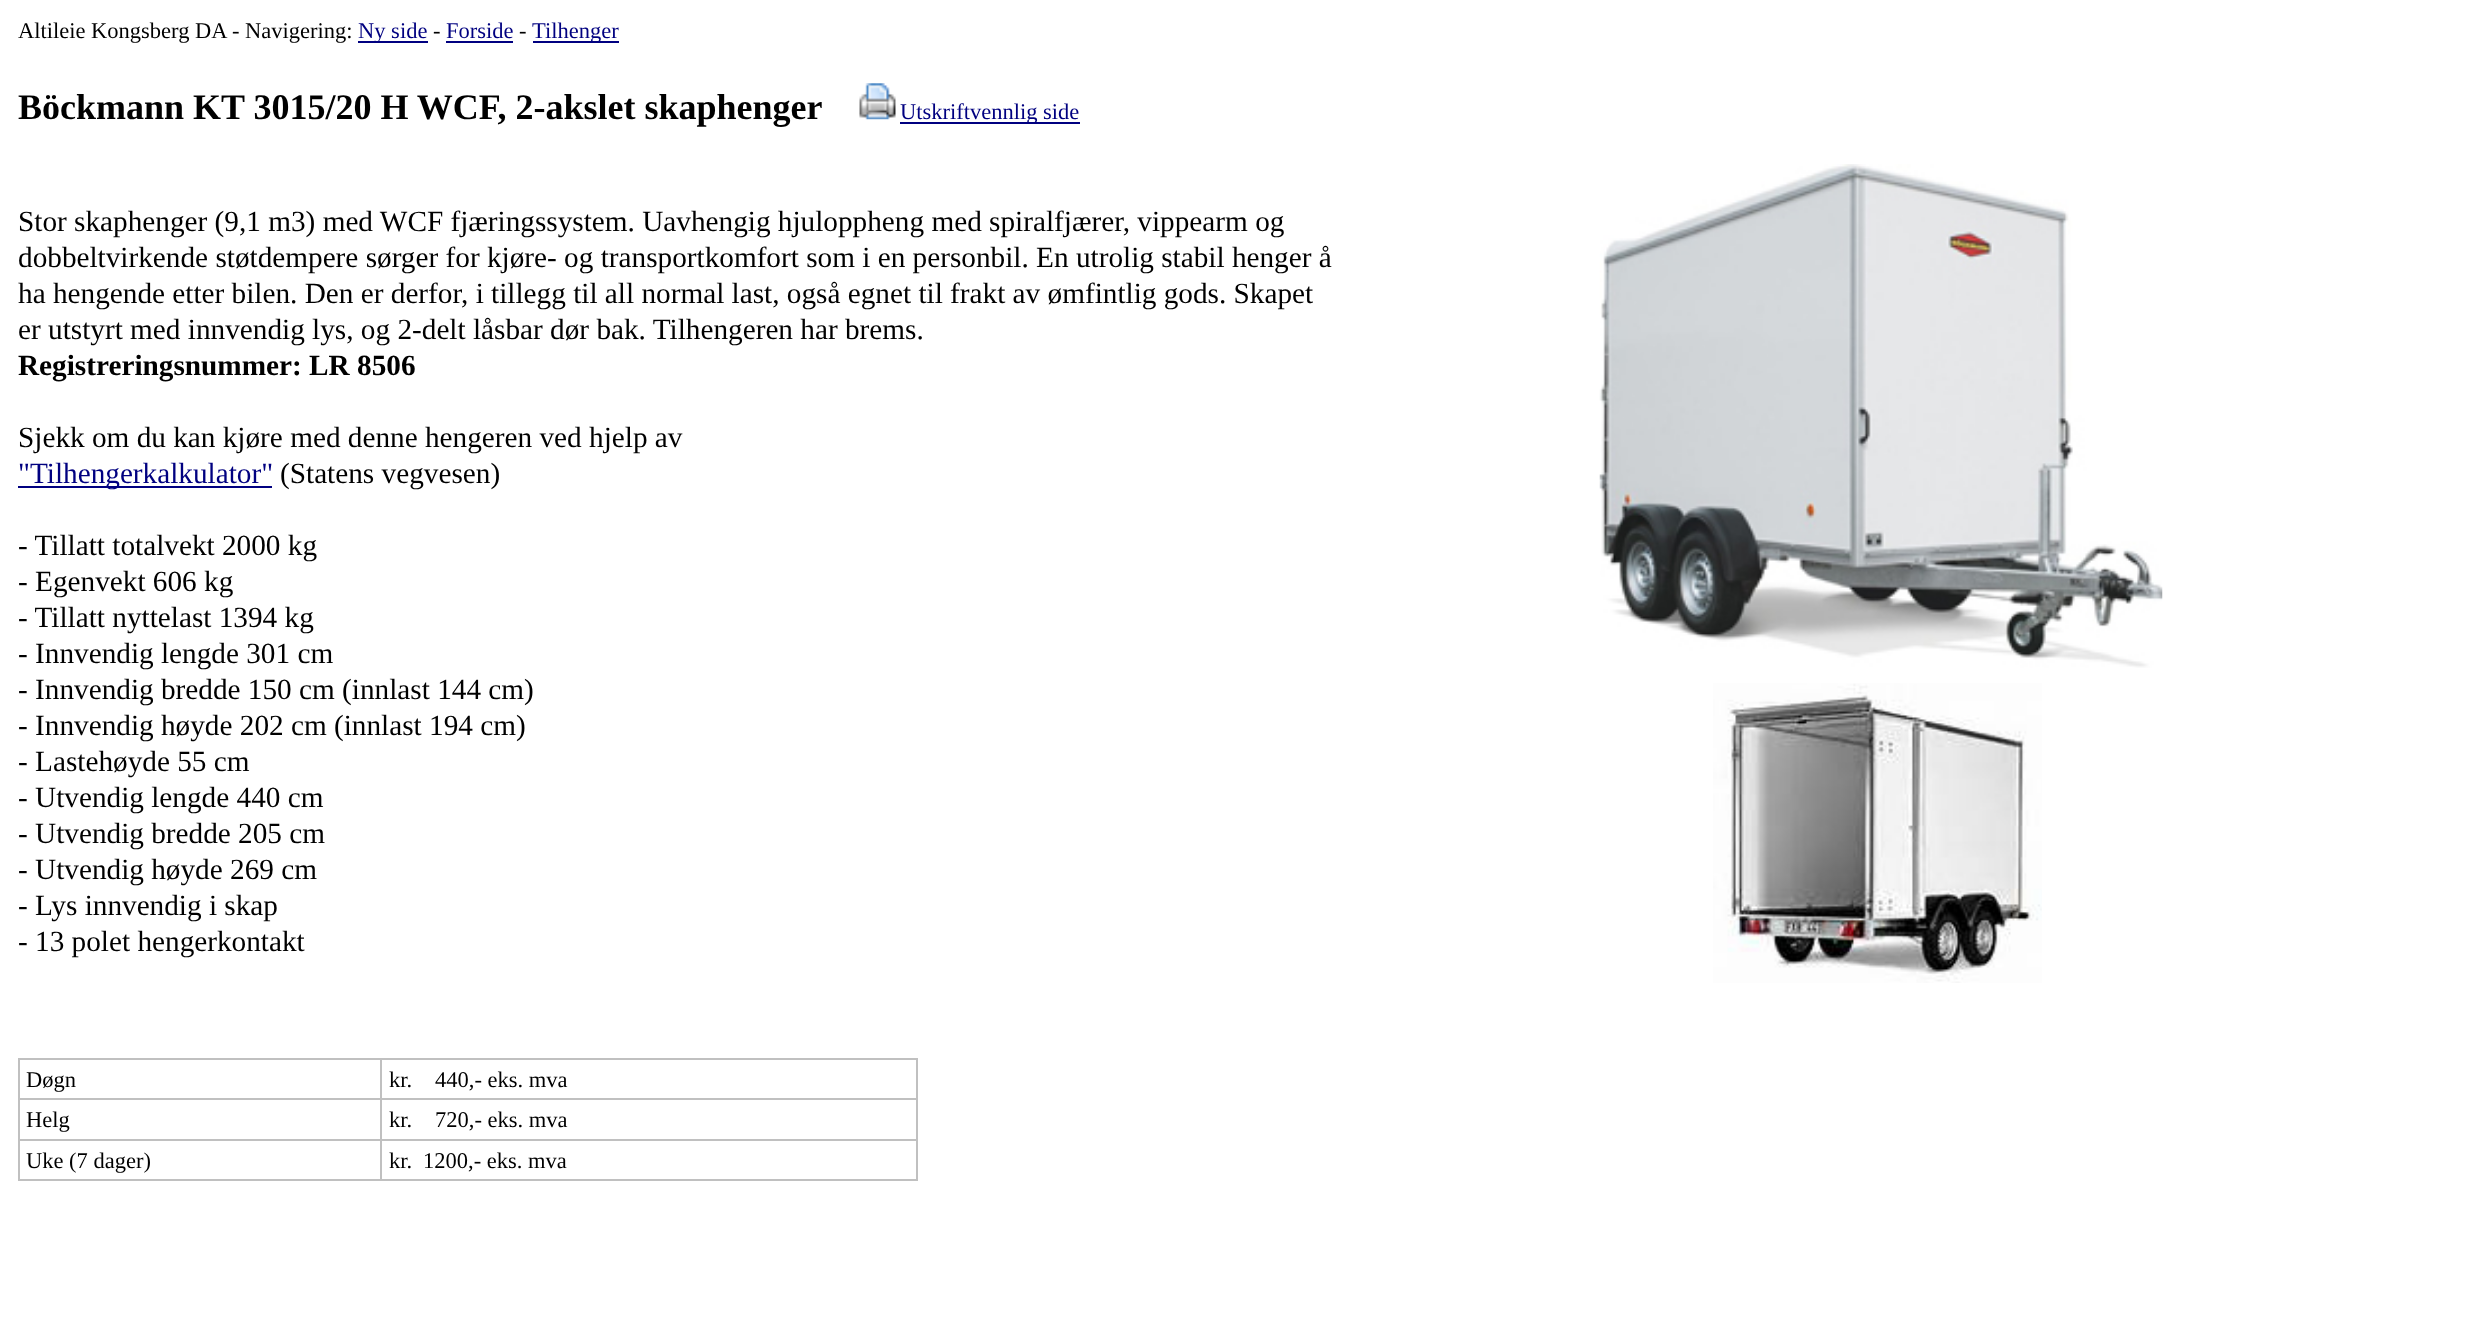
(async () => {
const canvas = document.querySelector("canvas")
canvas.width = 2488
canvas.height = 1331
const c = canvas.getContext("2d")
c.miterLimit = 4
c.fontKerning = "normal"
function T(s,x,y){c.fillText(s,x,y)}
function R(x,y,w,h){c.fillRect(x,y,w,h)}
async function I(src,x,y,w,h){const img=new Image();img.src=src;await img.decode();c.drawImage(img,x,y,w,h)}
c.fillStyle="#fff"
R(0,0,2488,1331)
c.font="22.5px Liberation Serif"
c.fillStyle="#000"
T("Altileie Kongsberg DA - Navigering:",18,38)
c.fillStyle="#000080"
R(358,41,70,2)
T("Ny side",358,38)
c.fillStyle="#000"
T("-",433,38)
c.fillStyle="#000080"
T("Forside",446,38)
R(446,41,67,2)
c.fillStyle="#000"
T("-",519,38)
c.fillStyle="#000080"
R(533,41,86,2)
T("Tilhenger",532,38)
c.font="bold 36px Liberation Serif"
c.fillStyle="#000"
T("Böckmann KT 3015/20 H WCF, 2-akslet skaphenger",18,119)
await I("1.png",859,83,37,37)
c.fillStyle="#000080"
R(900,122,180,2)
c.font="22.5px Liberation Serif"
T("Utskriftvennlig side",900,119)
c.font="29.25px Liberation Serif"
c.fillStyle="#000"
T("Stor skaphenger (9,1 m3) med WCF fjæringssystem. Uavhengig hjuloppheng med spiralfjærer, vippearm og",18,231)
T("dobbeltvirkende støtdempere sørger for kjøre- og transportkomfort som i en personbil. En utrolig stabil henger å",18,267)
T("ha hengende etter bilen. Den er derfor, i tillegg til all normal last, også egnet til frakt av ømfintlig gods. Skapet",18,303)
T("er utstyrt med innvendig lys, og 2-delt låsbar dør bak. Tilhengeren har brems.",18,339)
c.font="bold 29.25px Liberation Serif"
T("Registreringsnummer: LR 8506",18,375)
c.font="29.25px Liberation Serif"
T("Sjekk om du kan kjøre med denne hengeren ved hjelp av",18,447)
c.fillStyle="#000080"
R(18,486,254,2)
T("\"Tilhengerkalkulator\"",18,483)
c.fillStyle="#000"
T("(Statens vegvesen)",280,483)
T("- Tillatt totalvekt 2000 kg",18,555)
T("- Egenvekt 606 kg",18,591)
T("- Tillatt nyttelast 1394 kg",18,627)
T("- Innvendig lengde 301 cm",18,663)
T("- Innvendig bredde 150 cm (innlast 144 cm)",18,699)
T("- Innvendig høyde 202 cm (innlast 194 cm)",18,735)
T("- Lastehøyde 55 cm",18,771)
T("- Utvendig lengde 440 cm",18,807)
T("- Utvendig bredde 205 cm",18,843)
T("- Utvendig høyde 269 cm",18,879)
T("- Lys innvendig i skap",18,915)
T("- 13 polet hengerkontakt",18,951)
await I("2.png",1599,164,564,504)
await I("3.png",1713,683,329,300)
c.fillStyle="#c0c0c0"
R(380,1058,538,2)
R(380,1098,538,2)
R(380,1139,538,2)
R(916,1139,2,42)
R(380,1179,538,2)
R(380,1139,2,42)
R(18,1139,365,2)
R(380,1098,2,43)
R(18,1098,365,2)
R(380,1058,2,42)
R(18,1058,365,2)
R(18,1179,365,2)
R(18,1139,2,42)
R(18,1098,2,43)
R(18,1058,2,42)
c.font="22.5px Liberation Serif"
c.fillStyle="#000"
T("Døgn",26,1087)
c.fillStyle="#c0c0c0"
R(916,1098,2,43)
R(916,1058,2,42)
c.fillStyle="#000"
T("kr.",389,1087)
T("440,- eks. mva",435,1087)
T("Helg",26,1127)
T("kr.",389,1127)
T("720,- eks. mva",435,1127)
T("Uke (7 dager)",26,1168)
T("kr.",389,1168)
T("1200,- eks. mva",423,1168)
})()
